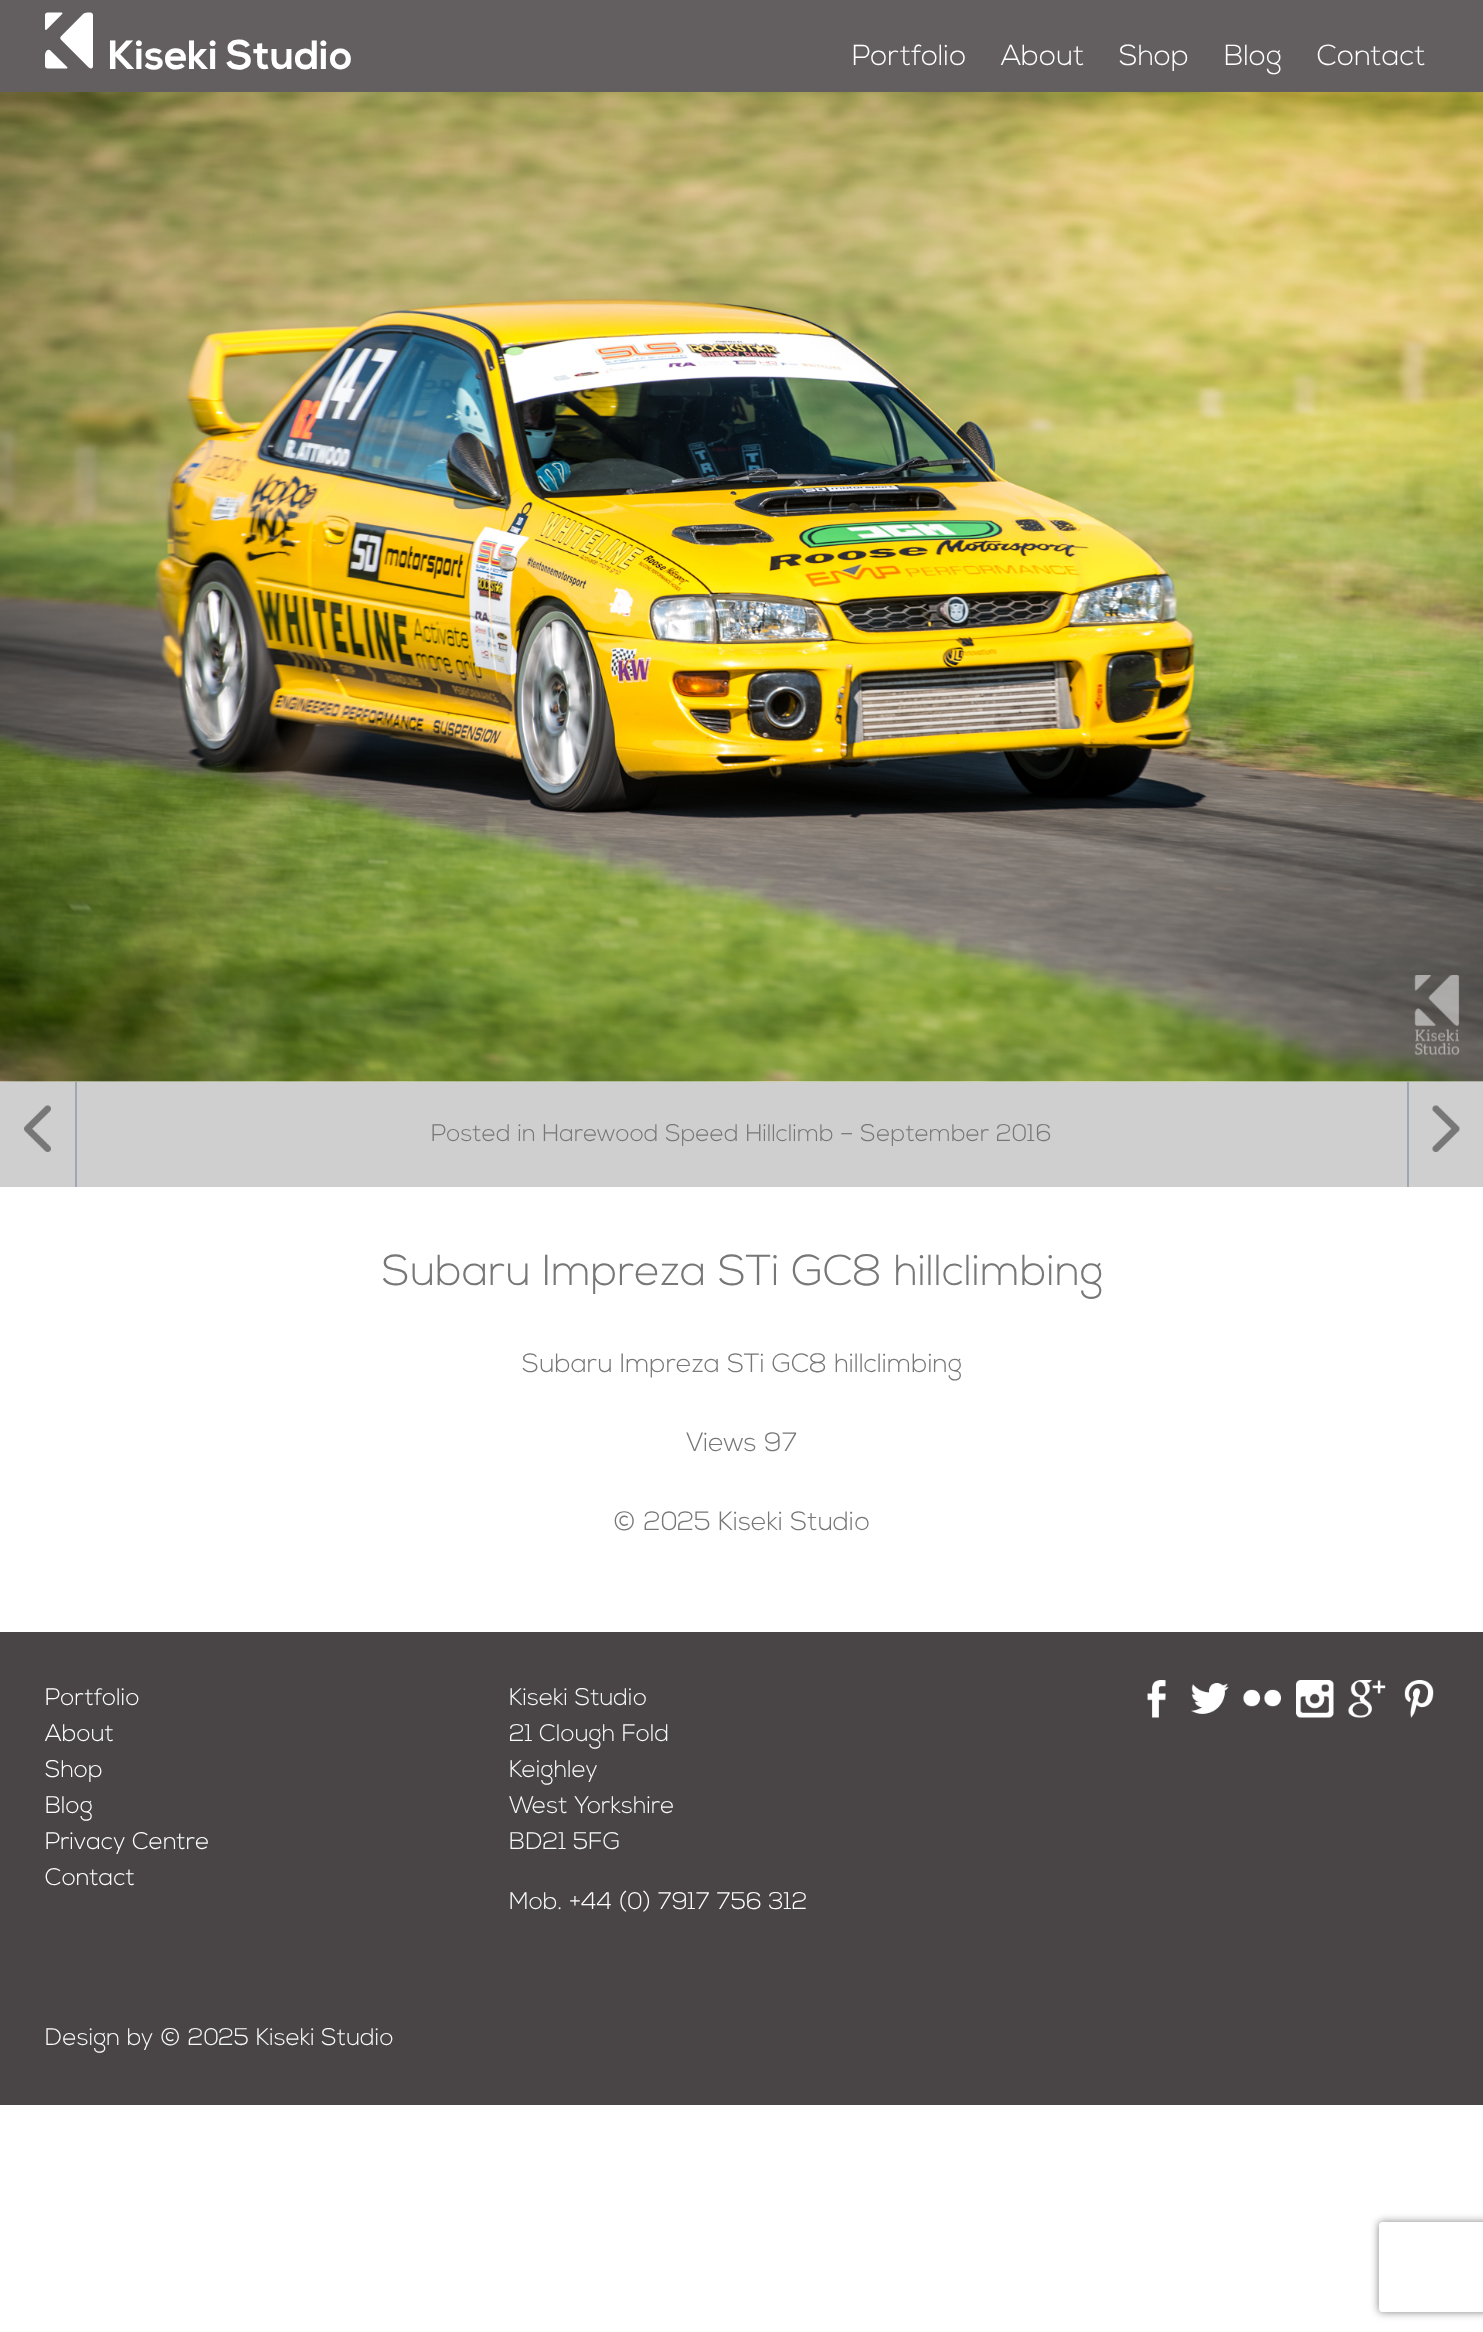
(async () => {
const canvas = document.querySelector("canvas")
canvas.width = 1483
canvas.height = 2332
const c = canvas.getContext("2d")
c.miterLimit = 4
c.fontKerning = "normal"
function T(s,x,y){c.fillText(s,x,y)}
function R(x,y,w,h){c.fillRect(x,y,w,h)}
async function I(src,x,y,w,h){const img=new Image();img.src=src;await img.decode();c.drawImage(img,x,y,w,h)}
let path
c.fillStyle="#fff"
R(0,0,1483,2332)
c.fillStyle="#635e5f"
R(0,0,1483,92)
await I("1.png",45,12,48,57)
c.font="bold 40.75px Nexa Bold"
c.fillStyle="#fff"
T("Kiseki Studio",108,69)
c.font="300 29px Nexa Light"
T("Portfolio",852,65)
T("About",1001,65)
T("Shop",1119,65)
T("Blog",1224,65)
T("Contact",1317,65)
await I("2.png",0,92,1483,990)
c.fillStyle="#cfcfcf"
R(0,1082,1483,105)
c.fillStyle="#9fa6b4"
R(75,1082,2,105)
await I("3.png",24,1105,27,47)
c.font="300 24px Nexa Light"
c.fillStyle="#777"
T("Posted in Harewood Speed Hillclimb – September 2016",431,1141)
c.fillStyle="#9fa6b4"
R(1407,1082,2,105)
await I("4.png",1432,1105,28,47)
c.font="300 43.25px Nexa Light"
c.fillStyle="#777"
T("Subaru Impreza STi GC8 hillclimbing",382,1285)
c.font="300 26.4px Nexa Light"
T("Subaru Impreza STi GC8 hillclimbing",522,1372)
T("Views 97",686,1451)
T("© 2025 Kiseki Studio",613,1530)
c.fillStyle="#494546"
R(0,1632,1483,473)
c.font="300 24px Nexa Light"
c.fillStyle="#fff"
T("Portfolio",45,1705)
T("About",45,1741)
T("Shop",45,1777)
T("Blog",45,1813)
T("Privacy Centre",45,1849)
T("Contact",45,1885)
c.fillStyle="#f8f9fa"
T("Kiseki Studio",509,1705)
T("21 Clough Fold",509,1741)
T("Keighley",509,1777)
T("West Yorkshire",509,1813)
T("BD21 5FG",509,1849)
T("Mob.",509,1909)
c.fillStyle="#fff"
T("+44 (0) 7917 756 312",569,1909)
await I("5.png",1147,1680,19,38)
await I("6.png",1191,1683,38,31)
await I("7.png",1243,1689,38,18)
await I("8.png",1296,1680,38,38)
await I("9.png",1348,1680,38,38)
await I("10.png",1404,1680,30,38)
c.fillStyle="#f8f9fa"
T("Design by © 2025 Kiseki Studio",45,2045)
c.save()
path = new Path2D("M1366 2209h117v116h-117zm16 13h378c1.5 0 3 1.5 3 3v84c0 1.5-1.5 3-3 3h-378c-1.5 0-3-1.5-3-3v-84c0-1.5 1.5-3 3-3z")
c.clip(path,"evenodd")
c.fillStyle="#808080"
c.filter="blur(4px)"
c.beginPath()
c.roundRect(1379,2222,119,90,3)
c.fill()
c.filter="none"
c.restore()
})()
